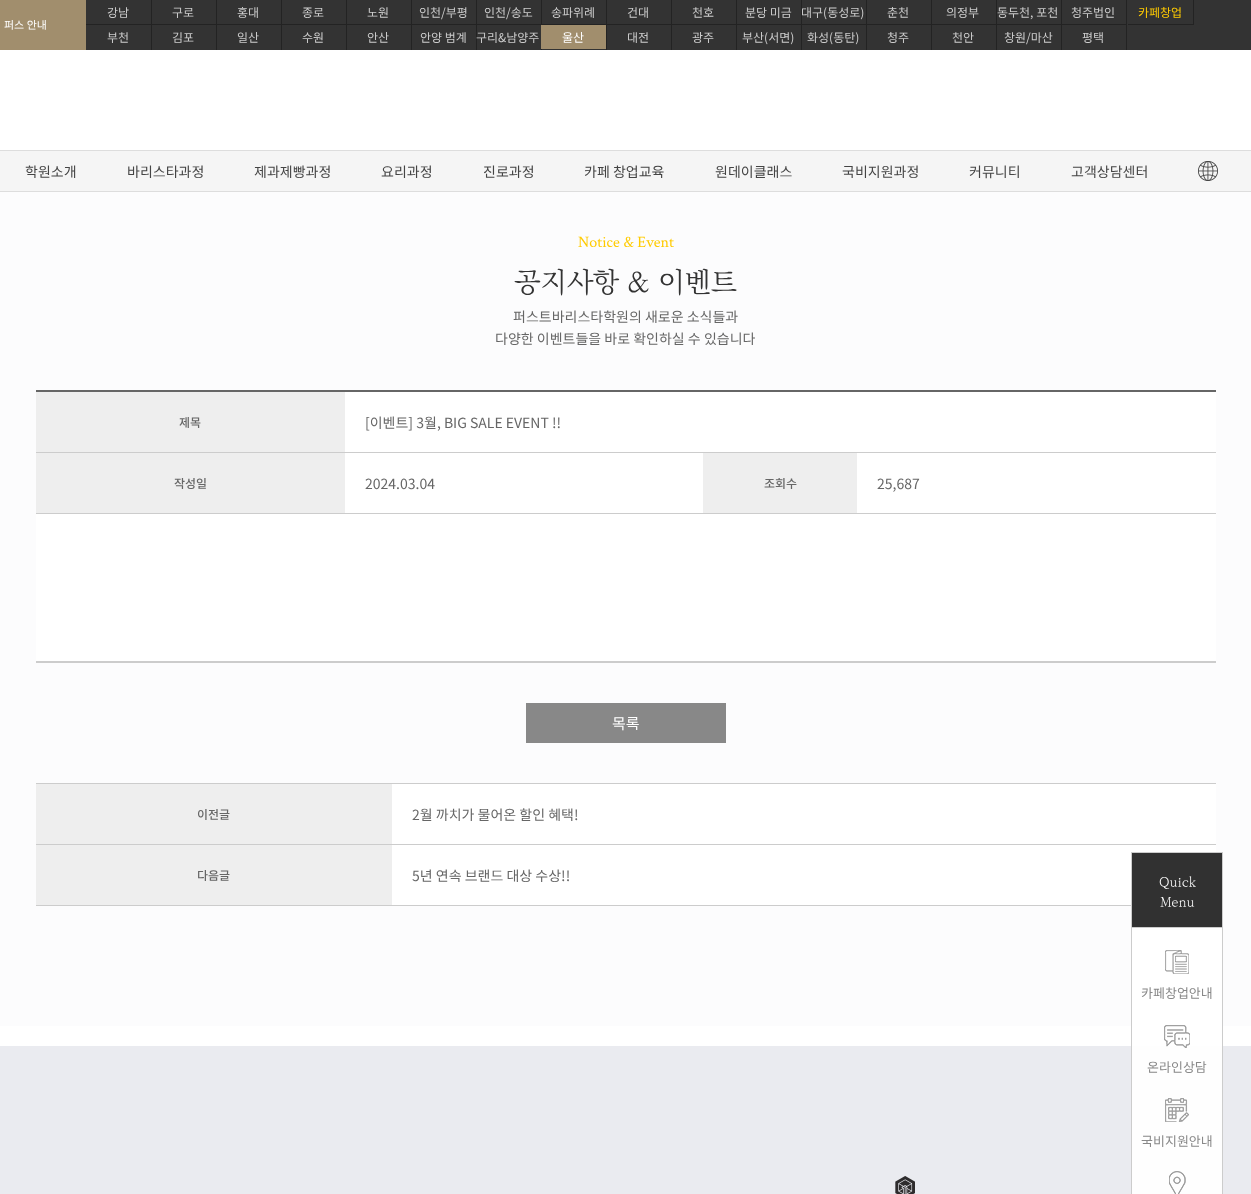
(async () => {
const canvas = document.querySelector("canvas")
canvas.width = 1251
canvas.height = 1194
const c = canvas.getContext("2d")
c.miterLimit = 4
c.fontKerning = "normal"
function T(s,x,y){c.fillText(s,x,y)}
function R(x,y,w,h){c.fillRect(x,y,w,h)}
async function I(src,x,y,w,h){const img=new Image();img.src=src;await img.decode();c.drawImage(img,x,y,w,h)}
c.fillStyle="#fff"
R(0,0,1251,1194)
c.fillStyle="#333"
R(86,0,1165,50)
c.fillStyle="#232323"
R(86,24,66,1)
R(151,0,1,50)
c.font="12px Noto Sans KR"
c.fillStyle="#ccc"
T("강남",107,17)
c.fillStyle="#232323"
R(151,24,131,1)
R(216,0,1,50)
c.fillStyle="#ccc"
T("구로",172,17)
c.fillStyle="#232323"
R(281,0,1,50)
c.fillStyle="#ccc"
T("홍대",237,17)
c.fillStyle="#232323"
R(281,24,66,1)
R(346,0,1,50)
c.fillStyle="#ccc"
T("종로",302,17)
c.fillStyle="#232323"
R(346,24,66,1)
R(411,0,1,50)
c.fillStyle="#ccc"
T("노원",367,17)
c.fillStyle="#232323"
R(411,24,131,1)
R(476,0,1,50)
c.fillStyle="#ccc"
T("인천/부평",419,17)
c.fillStyle="#232323"
R(541,0,1,25)
c.fillStyle="#ccc"
T("인천/송도",484,17)
c.fillStyle="#232323"
R(606,24,66,1)
R(541,24,66,1)
R(606,0,1,50)
c.fillStyle="#ccc"
T("송파위례",551,17)
c.fillStyle="#232323"
R(671,0,1,50)
c.fillStyle="#ccc"
T("건대",627,17)
c.fillStyle="#232323"
R(671,24,66,1)
R(736,0,1,50)
c.fillStyle="#ccc"
T("천호",692,17)
c.fillStyle="#232323"
R(736,24,66,1)
R(801,0,1,50)
c.fillStyle="#ccc"
T("분당 미금",745,17)
c.fillStyle="#232323"
R(801,24,131,1)
R(866,0,1,25)
c.fillStyle="#ccc"
T("대구(동성로)",801,17)
c.fillStyle="#232323"
R(931,0,1,50)
c.fillStyle="#ccc"
T("춘천",887,17)
c.fillStyle="#232323"
R(931,24,66,1)
R(996,0,1,25)
c.fillStyle="#ccc"
T("의정부",946,17)
c.fillStyle="#232323"
R(996,24,66,1)
R(1061,0,1,50)
c.fillStyle="#ccc"
T("동두천, 포천",997,17)
c.fillStyle="#232323"
R(1061,24,66,1)
R(1126,0,1,25)
c.fillStyle="#ccc"
T("청주법인",1071,17)
c.fillStyle="#232323"
R(1128,24,66,1)
R(1193,0,1,25)
c.fillStyle="#ffcb00"
T("카페창업",1138,17)
c.fillStyle="#a18e6d"
R(0,0,86,50)
c.font="11px Noto Sans KR"
c.fillStyle="#fff"
T("퍼스 안내",4,29)
c.font="12px Noto Sans KR"
c.fillStyle="#ccc"
T("부천",107,42)
T("김포",172,42)
T("일산",237,42)
T("수원",302,42)
T("안산",367,42)
T("안양 범계",420,42)
c.fillStyle="#232323"
R(541,49,1,1)
c.fillStyle="#ccc"
T("구리&남양주",476,42)
c.fillStyle="#a18e6d"
R(541,25,65,24)
c.fillStyle="#fff"
T("울산",562,42)
c.fillStyle="#ccc"
T("대전",627,42)
T("광주",692,42)
T("부산(서면)",742,42)
c.fillStyle="#232323"
R(866,25,1,25)
c.fillStyle="#ccc"
T("화성(동탄)",807,42)
T("청주",887,42)
c.fillStyle="#232323"
R(996,25,1,25)
c.fillStyle="#ccc"
T("천안",952,42)
T("창원/마산",1004,42)
c.fillStyle="#232323"
R(1126,25,1,25)
c.fillStyle="#ccc"
T("평택",1082,42)
c.fillStyle="#f5f5f5"
R(0,151,1251,40)
c.fillStyle="#ddd"
R(0,150,1251,1)
R(0,191,1251,1)
c.font="14px Noto Sans KR"
c.fillStyle="#444"
T("학원소개",25,177)
T("바리스타과정",127,177)
T("제과제빵과정",254,177)
T("요리과정",381,177)
T("진로과정",483,177)
T("카페 창업교육",584,177)
T("원데이클래스",715,177)
T("국비지원과정",842,177)
T("커뮤니티",969,177)
T("고객상담센터",1071,177)
await I("1.png",1198,161,20,20)
c.fillStyle="#fcfcfd"
R(0,192,1251,834)
c.fillStyle="#fff"
R(392,845,824,60)
c.fillStyle="#313131"
R(1132,853,90,74)
c.fillStyle="#ccc"
R(1131,852,92,1)
R(1222,852,1,75)
R(1131,852,1,75)
c.font="300 13px KoPub Batang"
c.fillStyle="#fff"
T("Quick",1159,886)
T("Menu",1160,906)
R(1132,928,90,98)
c.fillStyle="#eaebf0"
R(0,1046,1251,148)
c.fillStyle="#fefefe"
R(1132,1046,90,148)
c.strokeStyle="#ccc"
c.strokeRect(1131.5,927.5,91,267)
await I("2.png",1165,950,24,24)
c.font="13px Noto Sans KR"
c.fillStyle="#888"
T("카페창업안내",1141,998)
await I("3.png",1164,1025,26,23)
T("온라인상담",1147,1072)
await I("4.png",1165,1098,24,24)
T("국비지원안내",1141,1146)
await I("5.png",1169,1171,17,23)
c.font="16px Crimson Text"
c.fillStyle="#ffcb00"
T("Notice & Event",578,247)
c.font="300 28px KoPub Batang"
c.fillStyle="#333"
T("공지사항 & 이벤트",514,291)
c.font="14px Noto Sans KR"
c.fillStyle="#666"
T("퍼스트바리스타학원의 새로운 소식들과",513,322)
T("다양한 이벤트들을 바로 확인하실 수 있습니다",495,344)
c.fillStyle="#fff"
R(36,392,1180,269)
c.fillStyle="#666"
R(36,390,1180,2)
c.fillStyle="#ccc"
R(36,661,1180,2)
c.fillStyle="#eee"
R(36,392,309,60)
c.fillStyle="#ccc"
R(36,452,1180,1)
c.font="500 12px Noto Sans KR"
c.fillStyle="#666"
T("제목",179,427)
c.font="14px Noto Sans KR"
T("[이벤트] 3월, BIG SALE EVENT !!",365,428)
c.fillStyle="#eee"
R(36,453,309,60)
c.fillStyle="#ccc"
R(36,513,1180,1)
c.font="500 12px Noto Sans KR"
c.fillStyle="#666"
T("작성일",174,488)
c.font="14px Noto Sans KR"
T("2024.03.04",365,489)
c.fillStyle="#eee"
R(703,453,154,60)
c.font="500 12px Noto Sans KR"
c.fillStyle="#666"
T("조회수",764,488)
c.font="14px Noto Sans KR"
T("25,687",877,489)
c.fillStyle="#888"
R(526,703,200,40)
c.font="15px Noto Sans KR"
c.fillStyle="#fff"
T("목록",612,729)
R(392,784,824,60)
c.fillStyle="#ccc"
R(36,783,1180,1)
c.fillStyle="#eee"
R(36,784,356,60)
c.fillStyle="#ccc"
R(36,844,1180,1)
c.font="500 12px Noto Sans KR"
c.fillStyle="#666"
T("이전글",197,819)
c.font="14px Noto Sans KR"
T("2월 까치가 물어온 할인 혜택!",412,820)
c.fillStyle="#eee"
R(36,845,356,60)
c.fillStyle="#ccc"
R(36,905,1095,1)
c.font="500 12px Noto Sans KR"
c.fillStyle="#666"
T("다음글",197,880)
c.font="14px Noto Sans KR"
T("5년 연속 브랜드 대상 수상!!",412,881)
await I("6.png",895,1176,20,18)
})()
